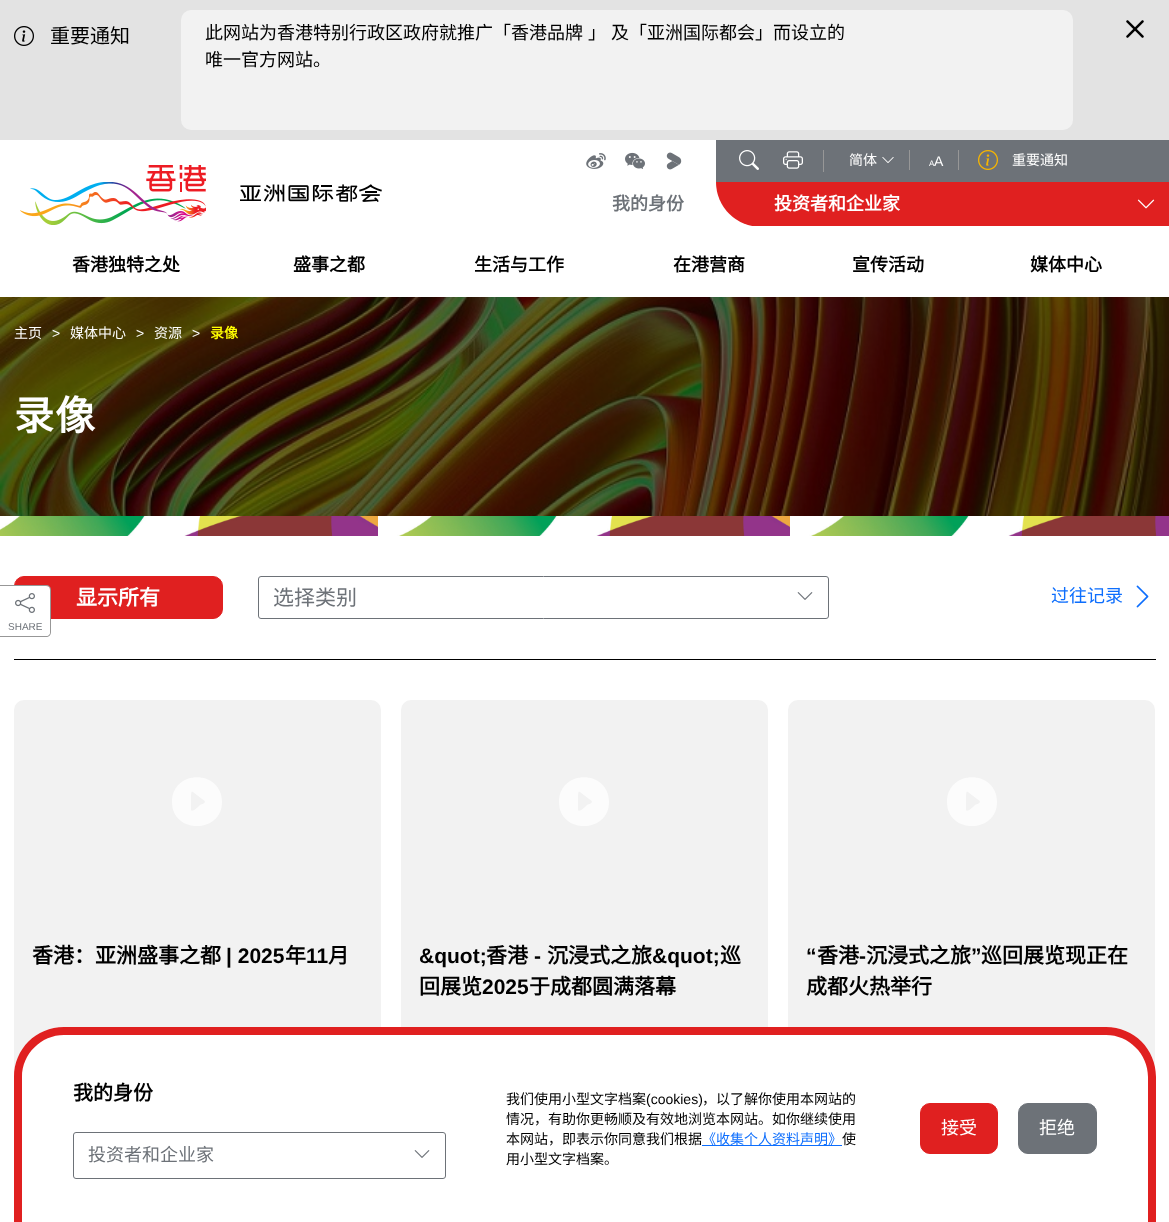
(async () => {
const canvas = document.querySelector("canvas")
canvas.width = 1169
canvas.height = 1222
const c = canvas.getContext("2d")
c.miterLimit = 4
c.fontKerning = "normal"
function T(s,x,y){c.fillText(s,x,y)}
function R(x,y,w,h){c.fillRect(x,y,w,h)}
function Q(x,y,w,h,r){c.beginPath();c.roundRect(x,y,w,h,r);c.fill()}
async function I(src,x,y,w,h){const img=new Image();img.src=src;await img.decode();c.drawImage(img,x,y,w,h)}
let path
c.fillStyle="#fff"
R(0,0,1169,1222)
c.fillStyle="#e3e3e3"
R(0,0,1169,140)
await I("1.png",14,26,20,20)
c.font="20px Noto Sans CJK SC"
c.fillStyle="#000"
T("重要通知",50,43)
c.fillStyle="#f2f2f2"
Q(181,10,892,120,10)
c.wordSpacing="1px"
c.font="18px Noto Sans CJK SC"
c.fillStyle="#000"
T("此网站为香港特别行政区政府就推广「香港品牌 」 及「亚洲国际都会」而设立的",205,39)
c.wordSpacing="0px"
T("唯一官方网站。",205,66)
await I("2.png",1126,20,18,18)
await I("3.png",20,165,186,60)
await I("4.png",240,184,142,18)
c.fillStyle="#6d7278"
R(716,140,453,42)
await I("5.png",586,153,20,16)
await I("6.png",625,152,20,17)
await I("7.png",666,152,16,18)
await I("8.png",739,150,20,20)
await I("9.png",783,151,20,18)
c.fillStyle="#979797"
R(823,150,1,22)
c.font="14px Noto Sans CJK SC"
c.fillStyle="#fff"
T("简体",849,165)
await I("10.png",882,157,12,6)
c.fillStyle="#979797"
R(909,150,1,20)
c.font="8px Liberation Sans"
c.fillStyle="#fff"
T("A",929,166)
c.font="14px Liberation Sans"
T("A",934,166)
c.fillStyle="#979797"
R(958,150,1,20)
await I("11.png",978,150,20,20)
c.font="14px Noto Sans CJK SC"
c.fillStyle="#fff"
T("重要通知",1012,165)
c.font="bold 18px Noto Sans CJK SC"
c.fillStyle="#6d7278"
T("我的身份",612,210)
c.fillStyle="#e02020"
c.beginPath()
c.roundRect(716,182,440,45,[0,0,0,45])
c.fill()
c.fillStyle="#fff"
T("投资者和企业家",774,210)
await I("12.png",1137,199,18,10)
R(751,226,405,1)
c.fillStyle="#e02020"
R(1156,182,13,44)
c.fillStyle="#000"
T("香港独特之处",72,271)
T("盛事之都",293,271)
T("生活与工作",474,271)
T("在港营商",673,271)
T("宣传活动",852,271)
T("媒体中心",1030,271)
await I("13.png",0,297,1169,219)
c.font="14px Noto Sans CJK SC"
c.fillStyle="#fff"
T("主页",14,338)
c.font="14px Liberation Sans"
T(">",52,338)
c.font="14px Noto Sans CJK SC"
T("媒体中心",70,338)
c.font="14px Liberation Sans"
T(">",136,338)
c.font="14px Noto Sans CJK SC"
T("资源",154,338)
c.font="14px Liberation Sans"
T(">",192,338)
c.font="bold 14px Noto Sans CJK SC"
c.fillStyle="#ff0"
T("录像",210,338)
c.letterSpacing="1px"
c.font="bold 40px Noto Sans CJK SC"
c.fillStyle="#fff"
T("录像",14,430)
await I("14.png",0,516,1169,20)
c.fillStyle="#e02020"
c.beginPath()
c.roundRect(14.5,576.5,208,42,9.5)
c.fill()
c.strokeStyle="#e02020"
c.stroke()
c.fillStyle="#979797"
path = new Path2D("M0 585h46c3 0 5 2 5 5v42c0 3-2 5-5 5h-46zm0 1h46c2 0 4 2 4 4v42c0 2-2 4-4 4h-46z")
c.fill(path,"evenodd")
c.fillStyle="#fff"
c.beginPath()
c.roundRect(0,586,50,50,[0,4,4,0])
c.fill()
await I("15.png",15,593,20,20)
c.letterSpacing="0px"
c.font="10px Liberation Sans"
c.fillStyle="#6d7278"
T("SHARE",8,630)
c.fillStyle="#000"
R(14,659,1142,1)
c.font="bold 21px Noto Sans CJK SC"
c.fillStyle="#fff"
T("显示所有",76,605)
c.beginPath()
c.roundRect(258.5,576.5,570,42,2.5)
c.strokeStyle="#6d7278"
c.stroke()
c.font="21px Noto Sans CJK SC"
c.fillStyle="#6d7278"
T("选择类别",273,605)
await I("16.png",797,592,16,8)
c.font="18px Noto Sans CJK SC"
c.fillStyle="#0d6efd"
T("过往记录",1051,602)
await I("17.png",1136,585,13,23)
c.fillStyle="#f2f2f2"
Q(14,700,367,384,10)
c.fillStyle="#fcfcfc"
path = new Path2D("M222 802c0 32-50 32-50 0c0-33 50-33 50 0zm-29-10c-2-2-2 2-2 10v8c1 3 8-4 9-5c5-2 7-3 2-6z")
c.fill(path)
c.font="bold 21px Noto Sans CJK SC"
c.fillStyle="#000"
T("香港：亚洲盛事之都",32,963)
c.font="bold 21px Liberation Sans"
T("| 2025",226,963)
c.font="bold 21px Noto Sans CJK SC"
T("年",285,963)
c.font="bold 21px Liberation Sans"
T("11",306,963)
c.font="bold 21px Noto Sans CJK SC"
T("月",328,963)
c.fillStyle="#f2f2f2"
Q(401,700,367,384,10)
c.fillStyle="#fcfcfc"
path = new Path2D("M609 802c0 32-50 32-50 0c0-33 50-33 50 0zm-29-10c-2-2-2 2-2 10v8c1 3 8-4 9-5c5-2 7-3 2-6z")
c.fill(path)
c.font="bold 21px Liberation Sans"
c.fillStyle="#000"
T("&quot;",419,963)
c.font="bold 21px Noto Sans CJK SC"
T("香港",486,963)
c.font="bold 21px Liberation Sans"
T("-",534,963)
c.font="bold 21px Noto Sans CJK SC"
T("沉浸式之旅",547,963)
c.font="bold 21px Liberation Sans"
T("&quot;",652,963)
c.font="bold 21px Noto Sans CJK SC"
T("巡",720,963)
T("回展览",419,994)
c.font="bold 21px Liberation Sans"
T("2025",482,994)
c.font="bold 21px Noto Sans CJK SC"
T("于成都圆满落幕",529,994)
c.fillStyle="#f2f2f2"
Q(788,700,367,384,10)
c.fillStyle="#fcfcfc"
path = new Path2D("M997 802c0 32-50 32-50 0c0-33 50-33 50 0zm-29-10c-2-2-2 2-2 10v8c1 3 8-4 9-5c5-2 7-3 2-6z")
c.fill(path)
c.font="bold 21px Liberation Sans"
c.fillStyle="#000"
T("“",806,963)
c.font="bold 21px Noto Sans CJK SC"
T("香港",817,963)
T("沉浸式之旅",866,963)
c.font="bold 21px Liberation Sans"
T("”",971,963)
c.font="bold 21px Noto Sans CJK SC"
T("巡回展览现正在",981,963)
c.font="bold 21px Liberation Sans"
T("-",859,963)
c.font="bold 21px Noto Sans CJK SC"
T("成都火热举行",806,994)
c.fillStyle="#fff"
c.beginPath()
c.roundRect(14,1027,1142,195,[50,50,0,0])
c.fill()
c.fillStyle="#e02020"
path = new Path2D("M64 1027h1042c28 0 50 22 50 50v145h-1142v-145c0-28 22-50 50-50zm0 8h1042c23 0 42 19 42 42v145h-1126v-145c0-23 19-42 42-42z")
c.fill(path,"evenodd")
c.font="bold 20px Noto Sans CJK SC"
c.fillStyle="#000"
T("我的身份",73,1100)
c.beginPath()
c.roundRect(73.5,1132.5,372,46,2.5)
c.stroke()
c.font="18px Noto Sans CJK SC"
c.fillStyle="#6d7278"
T("投资者和企业家",88,1161)
await I("16.png",414,1150,16,8)
c.font="14px Noto Sans CJK SC"
c.fillStyle="#000"
T("我们使用小型文字档案",506,1104)
c.font="14px Liberation Sans"
T("(cookies)",646,1104)
c.font="14px Noto Sans CJK SC"
T("，以了解你使用本网站的",702,1104)
T("情况，有助你更畅顺及有效地浏览本网站。如你继续使用",506,1124)
T("本网站，即表示你同意我们根据",506,1144)
c.fillStyle="#0d6efd"
R(702,1145,140,1)
T("《收集个人资料声明》",702,1144)
c.fillStyle="#000"
T("使",842,1144)
T("用小型文字档案。",506,1164)
c.fillStyle="#e02020"
c.beginPath()
c.roundRect(920.5,1103.5,77,50,9.5)
c.fill()
c.strokeStyle="#e02020"
c.stroke()
c.font="18px Noto Sans CJK SC"
c.fillStyle="#fff"
T("接受",941,1134)
c.fillStyle="#6d7278"
c.beginPath()
c.roundRect(1018.5,1103.5,78,50,9.5)
c.fill()
c.strokeStyle="#6d7278"
c.stroke()
c.fillStyle="#fff"
T("拒绝",1039,1134)
})()
